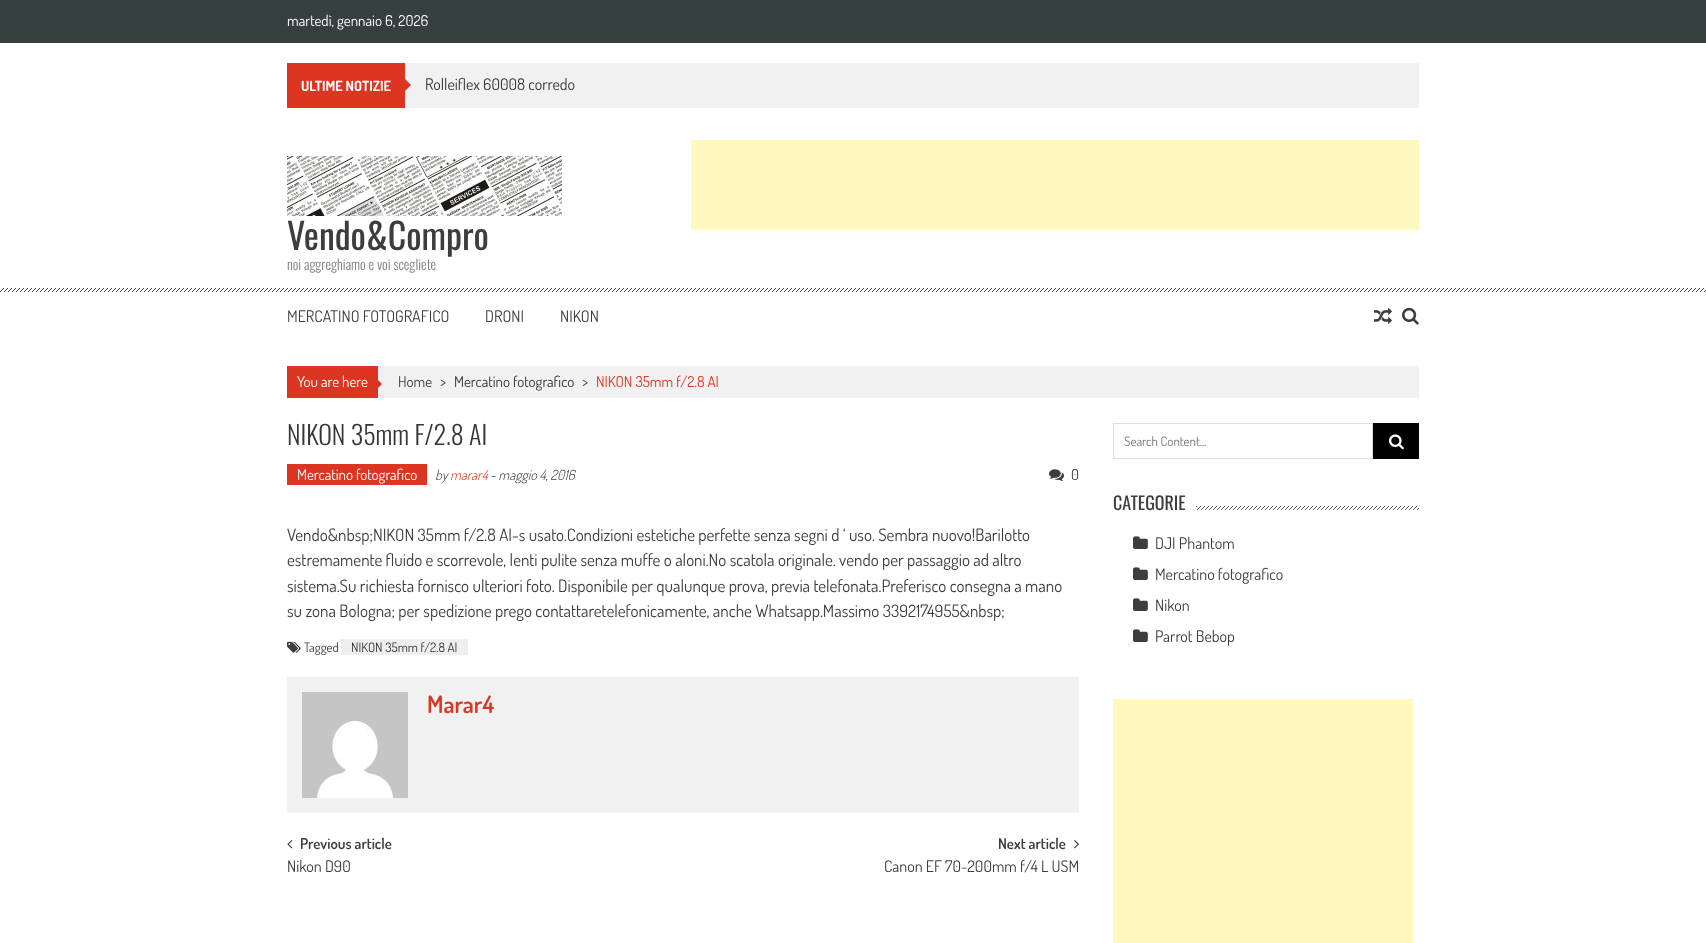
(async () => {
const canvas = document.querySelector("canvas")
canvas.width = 1706
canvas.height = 943
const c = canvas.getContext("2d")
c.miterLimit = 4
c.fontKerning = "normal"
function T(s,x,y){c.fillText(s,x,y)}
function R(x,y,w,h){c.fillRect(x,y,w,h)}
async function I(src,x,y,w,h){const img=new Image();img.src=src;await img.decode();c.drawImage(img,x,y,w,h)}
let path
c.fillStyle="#fff"
R(0,0,1706,943)
c.fillStyle="#36403f"
R(0,0,1706,43)
c.font="15px Dosis"
c.fillStyle="#fff"
T("martedì, gennaio 6, 2026",287,26)
c.fillStyle="#f1f1f1"
R(405,63,1014,45)
c.fillStyle="#dc3522"
R(287,63,118,45)
c.font="bold 14px Dosis"
c.fillStyle="#fff"
T("ULTIME NOTIZIE",301,91)
c.fillStyle="#dc3522"
path = new Path2D("M405 91v-12l6 6z")
c.fill(path)
c.font="16px Dosis"
c.fillStyle="#363636"
T("Rolleiflex 60008 corredo",425,90)
await I("1.png",0,288,1706,4)
c.fillStyle="#fff9c0"
R(691,140,728,90)
await I("2.png",287,156,275,60)
c.font="36px Oswald"
c.fillStyle="#3d3d3d"
T("Vendo&Compro",287,250)
c.font="300 14px Oswald"
c.fillStyle="#818181"
T("noi aggreghiamo e voi scegliete",287,270)
c.font="16px Dosis"
c.fillStyle="#3d3d3d"
T("MERCATINO FOTOGRAFICO",287,322)
T("DRONI",485,322)
T("NIKON",560,322)
await I("3.png",1374,307,18,17)
await I("4.png",1402,307,17,18)
c.fillStyle="#f1f1f1"
R(378,366,1041,32)
c.fillStyle="#dc3522"
R(287,366,91,32)
c.font="15px Dosis"
c.fillStyle="#fff"
T("You are here",297,387)
c.fillStyle="#dc3522"
path = new Path2D("M377 389v-10l5 5z")
c.fill(path)
c.fillStyle="#3d3d3d"
T("Home",398,387)
T(">",440,387)
c.fillStyle="#363636"
T("Mercatino fotografico",454,387)
c.fillStyle="#3d3d3d"
T(">",582,387)
c.fillStyle="#dc3522"
T("NIKON 35mm f/2.8 AI",596,387)
c.font="300 26px Oswald"
c.fillStyle="#363636"
T("NIKON 35mm F/2.8 AI",287,445)
c.fillStyle="#dc3522"
R(287,464,140,21)
c.font="15px Dosis"
c.fillStyle="#fff"
T("Mercatino fotografico",297,480)
c.font="italic 300 14px Dosis"
c.fillStyle="#3d3d3d"
T("by",435,480)
c.fillStyle="#dc3522"
T("marar4",450,480)
c.fillStyle="#3d3d3d"
T("- maggio 4, 2016",490,480)
await I("5.png",1049,469,15,12)
c.font="15px Dosis"
T("0",1071,480)
c.font="17px Dosis"
T("Vendo&nbsp;NIKON 35mm f/2.8 AI-s usato.Condizioni estetiche perfette senza segni d ‘ uso. Sembra nuovo!Barilotto",287,541)
T("estremamente fluido e scorrevole, lenti pulite senza muffe o aloni.No scatola originale. vendo per passaggio ad altro",287,566)
T("sistema.Su richiesta fornisco ulteriori foto. Disponibile per qualunque prova, previa telefonata.Preferisco consegna a mano",287,592)
T("su zona Bologna; per spedizione prego contattaretelefonicamente, anche Whatsapp.Massimo 3392174955&nbsp;",287,617)
await I("6.png",287,641,14,12)
c.font="13px Dosis"
T("Tagged",304,652)
c.fillStyle="#eee"
R(341,639,127,16)
c.fillStyle="#363636"
T("NIKON 35mm f/2.8 AI",351,652)
c.fillStyle="#f1f1f1"
R(287,677,792,136)
await I("7.png",302,692,106,106)
c.font="600 24px Dosis"
c.fillStyle="#dc3522"
T("Marar4",427,713)
await I("8.png",287,840,6,9)
c.font="600 15px Dosis"
c.fillStyle="#3d3d3d"
T("Previous article",300,849)
c.font="16px Dosis"
T("Nikon D90",287,872)
c.font="600 15px Dosis"
T("Next article",998,849)
await I("9.png",1074,840,5,9)
c.font="16px Dosis"
T("Canon EF 70-200mm f/4 L USM",884,872)
c.strokeStyle="#ddd"
c.strokeRect(1113.5,423.5,259,35)
c.font="13px Dosis"
c.fillStyle="#757575"
T("Search Content...",1124,446)
c.fillStyle="#000"
R(1373,423,46,36)
await I("10.png",1389,434,15,16)
await I("11.png",1196,506,223,4)
c.font="18px Oswald"
c.fillStyle="#3d3d3d"
T("CATEGORIE",1113,510)
await I("12.png",1133,536,15,13)
c.font="16px Dosis"
T("DJI Phantom",1155,549)
await I("12.png",1133,567,15,13)
T("Mercatino fotografico",1155,580)
await I("12.png",1133,598,15,13)
T("Nikon",1155,611)
await I("12.png",1133,629,15,13)
T("Parrot Bebop",1155,642)
c.fillStyle="#fff9c0"
R(1113,699,300,244)
})()
